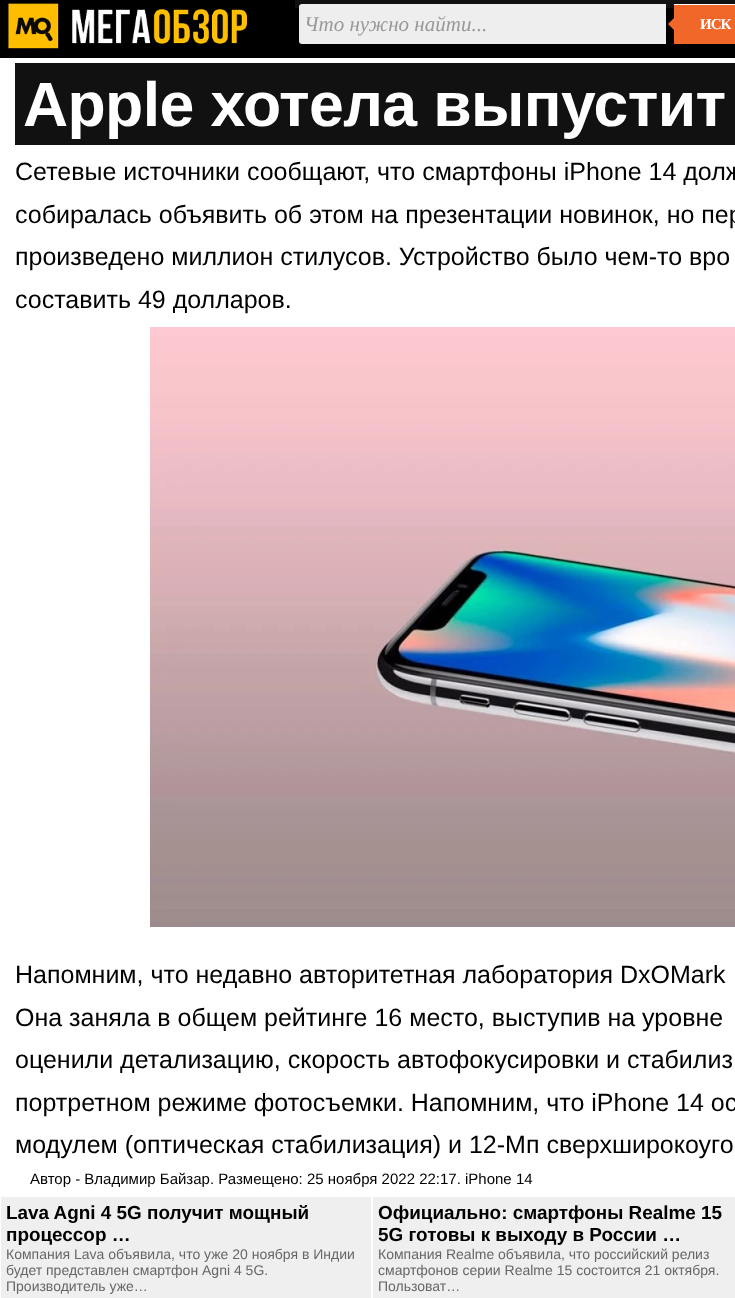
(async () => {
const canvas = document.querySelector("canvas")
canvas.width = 735
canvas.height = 1298
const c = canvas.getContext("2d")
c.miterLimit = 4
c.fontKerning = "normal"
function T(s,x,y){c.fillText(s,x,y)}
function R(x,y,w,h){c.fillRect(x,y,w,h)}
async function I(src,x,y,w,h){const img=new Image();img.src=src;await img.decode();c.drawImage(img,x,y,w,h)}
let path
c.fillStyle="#fff"
R(0,0,735,1298)
c.fillStyle="#000"
R(0,0,735,58)
await I("1.png",8,3,240,46)
c.fillStyle="#111"
R(295,0,440,8)
c.fillStyle="#eee"
c.beginPath()
c.roundRect(299,4,367,40,[3,0,0,3])
c.fill()
c.font="italic 21px Liberation Serif"
c.fillStyle="#999"
T("Что нужно найти...",304,31)
c.fillStyle="#f16729"
R(674,5,61,39)
c.fillStyle="#fff"
path = new Path2D("M674 5h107c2 0 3 1 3 3v-1c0-2-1-3-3-3h-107z")
c.fill(path)
c.fillStyle="#f16729"
path = new Path2D("M676 16v16l-8-8z")
c.fill(path)
c.letterSpacing="-1px"
c.font="bold 15px Liberation Serif"
c.fillStyle="#fff"
T("ИСК",700,29)
c.fillStyle="#111"
R(15,63,720,82)
c.letterSpacing="-0.6px"
c.font="bold 62.5px Liberation Sans"
c.fillStyle="#fff"
T("Apple хотела выпустит",23,126)
c.letterSpacing="0px"
c.font="25px Liberation Sans"
c.fillStyle="#000"
T("Сетевые источники сообщают, что смартфоны iPhone 14 долж",15,180)
T("собиралась объявить об этом на презентации новинок, но пер",15,223)
T("произведено миллион стилусов. Устройство было чем-то вро",15,265)
T("составить 49 долларов.",15,308)
await I("2.png",150,327,585,600)
T("Напомним, что недавно авторитетная лаборатория DxOMark",15,983)
T("Она заняла в общем рейтинге 16 место, выступив на уровне",15,1026)
T("оценили детализацию, скорость автофокусировки и стабилиз",15,1068)
T("портретном режиме фотосъемки. Напомним, что iPhone 14 ос",15,1111)
T("модулем (оптическая стабилизация) и 12-Мп сверхширокоуго",15,1153)
c.font="15px Liberation Sans"
T("Автор - Владимир Байзар. Размещено: 25 ноября 2022 22:17. iPhone 14",30,1184)
c.fillStyle="#efefef"
R(1,1197,370,101)
c.font="bold 18.9px Liberation Sans"
c.fillStyle="#000"
T("Lava Agni 4 5G получит мощный",6,1219)
T("процессор …",6,1241)
c.font="14px Liberation Sans"
c.fillStyle="#666"
T("Компания Lava объявила, что уже 20 ноября в Индии",6,1259)
T("будет представлен смартфон Agni 4 5G.",6,1275)
T("Производитель уже…",6,1291)
c.fillStyle="#efefef"
R(373,1197,362,101)
c.font="bold 18.9px Liberation Sans"
c.fillStyle="#000"
T("Официально: смартфоны Realme 15",378,1219)
T("5G готовы к выходу в России …",378,1241)
c.font="14px Liberation Sans"
c.fillStyle="#666"
T("Компания Realme объявила, что российский релиз",378,1259)
T("смартфонов серии Realme 15 состоится 21 октября.",378,1275)
T("Пользоват…",378,1291)
})()
